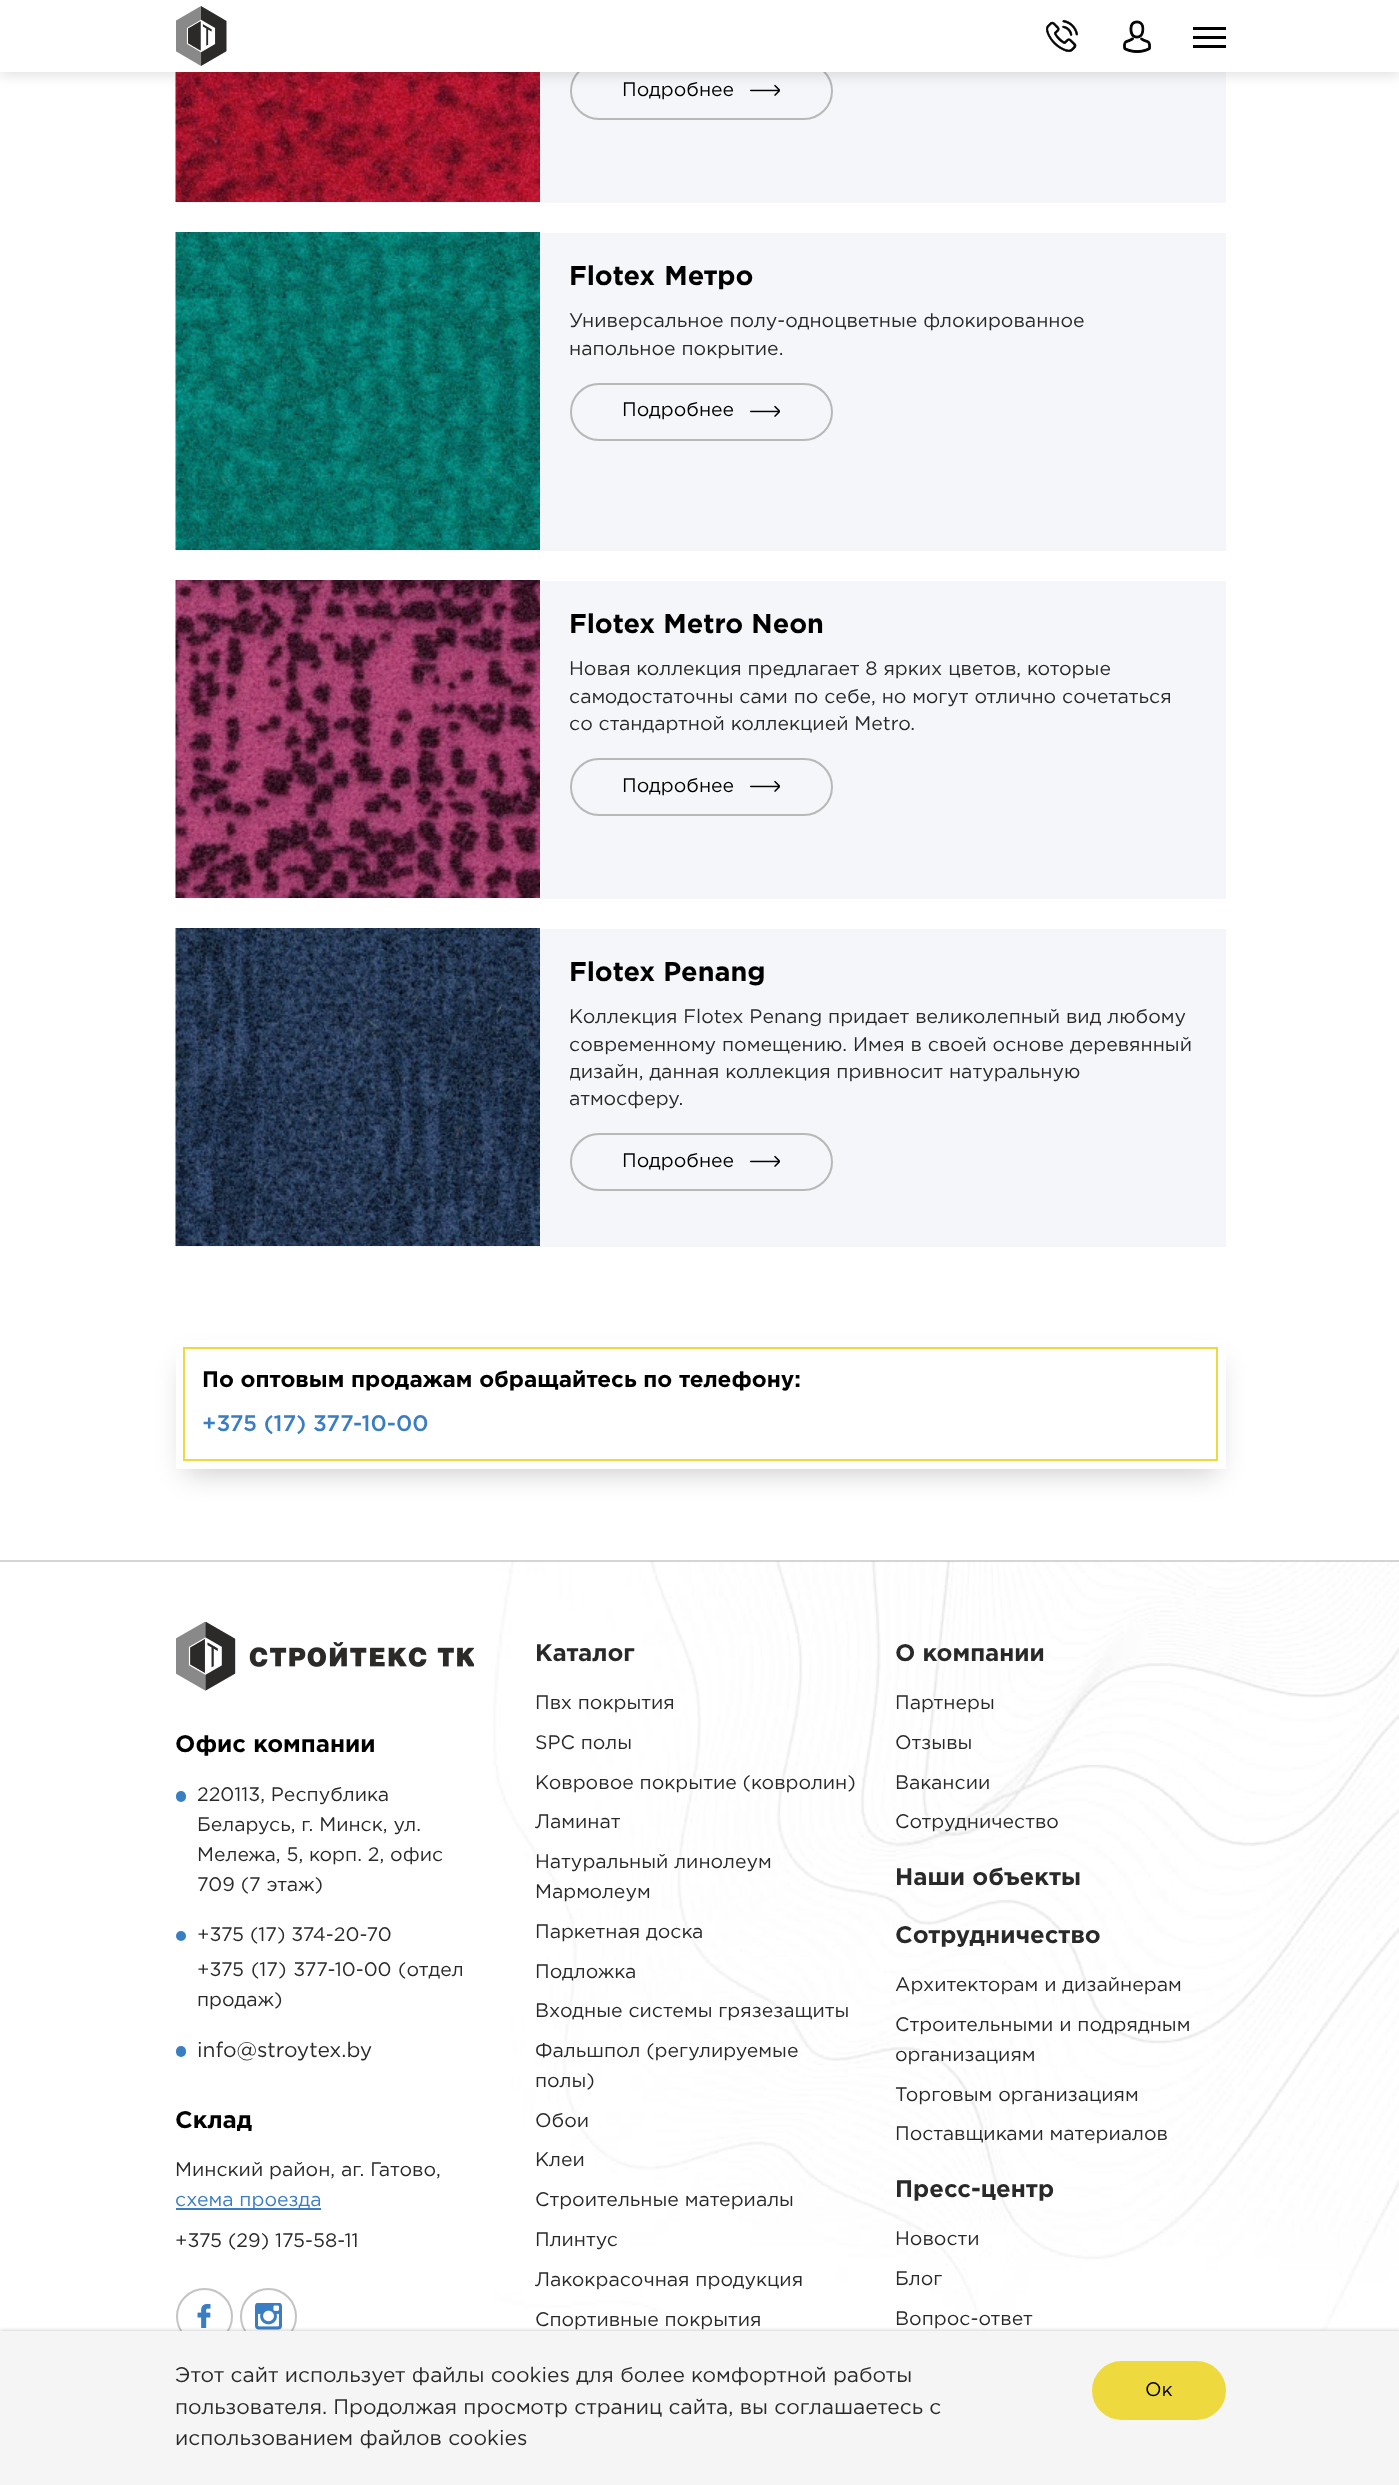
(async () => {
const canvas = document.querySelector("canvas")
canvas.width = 1399
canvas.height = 2485
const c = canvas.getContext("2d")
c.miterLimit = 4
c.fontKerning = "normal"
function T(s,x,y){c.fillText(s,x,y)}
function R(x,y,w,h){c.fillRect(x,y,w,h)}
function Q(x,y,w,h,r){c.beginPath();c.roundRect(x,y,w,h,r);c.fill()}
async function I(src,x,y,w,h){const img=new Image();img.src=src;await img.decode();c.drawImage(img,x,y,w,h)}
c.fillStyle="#fff"
R(0,0,1399,2485)
c.fillStyle="#f4f6fa"
R(176,72,1050,131)
await I("4.png",175,72,365,130)
c.beginPath()
c.roundRect(571,63,261,56,28)
c.strokeStyle="#b8b8b8"
c.lineWidth=2
c.stroke()
await I("5.png",750,84,30,12)
c.fillStyle="#0000001f"
c.filter="blur(7px)"
c.beginPath()
c.rect(0,3,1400,72)
c.fill()
c.filter="none"
c.fillStyle="#fff"
R(0,0,1399,72)
await I("1.png",176,6,51,60)
await I("2.png",1046,20,32,33)
await I("3.png",1123,20,28,33)
c.fillStyle="#000"
R(1193,36,33,3)
R(1193,27,33,3)
R(1193,45,33,3)
c.font="19.5px Gotham"
T("Подробнее",622,96)
c.fillStyle="#f4f6fa"
R(176,233,1050,318)
await I("6.png",175,232,365,318)
c.wordSpacing="1px"
c.font="bold 27px Gotham"
c.fillStyle="#000"
T("Flotex Mетро",569,285)
c.wordSpacing="0px"
c.font="19.5px Gotham"
c.fillStyle="#292929"
T("Универсальное полу-одноцветные флокированное",569,327)
T("напольное покрытие.",569,355)
c.beginPath()
c.roundRect(571,384,261,56,28)
c.stroke()
c.fillStyle="#000"
T("Подробнее",622,416)
await I("5.png",750,405,30,12)
c.fillStyle="#f4f6fa"
R(176,581,1050,318)
await I("7.png",175,580,365,318)
c.font="bold 27px Gotham"
c.fillStyle="#000"
T("Flotex Metro Neon",569,633)
c.font="19.5px Gotham"
c.fillStyle="#292929"
T("Новая коллекция предлагает 8 ярких цветов, которые",569,675)
T("самодостаточны сами по себе, но могут отлично сочетаться",569,703)
T("со стандартной коллекцией Metro.",569,730)
c.beginPath()
c.roundRect(571,759,261,56,28)
c.stroke()
c.fillStyle="#000"
T("Подробнее",622,792)
await I("5.png",750,780,30,12)
c.fillStyle="#f4f6fa"
R(176,929,1050,318)
await I("8.png",175,928,365,318)
c.font="bold 27px Gotham"
c.fillStyle="#000"
T("Flotex Penang",569,981)
c.font="19.5px Gotham"
c.fillStyle="#292929"
T("Коллекция Flotex Penang придает великолепный вид любому",569,1023)
T("современному помещению. Имея в своей основе деревянный",569,1051)
c.save()
c.beginPath()
c.rect(570,1005,626,110)
c.clip()
T("дизайн, данная коллекция привносит натуральную",569,1078)
c.restore()
T("атмосферу.",569,1105)
c.beginPath()
c.roundRect(571,1134,261,56,28)
c.stroke()
c.fillStyle="#000"
T("Подробнее",622,1167)
await I("5.png",750,1155,30,12)
c.fillStyle="#00000033"
c.filter="blur(14px)"
c.beginPath()
c.rect(185,1362,1032,111)
c.fill()
c.filter="none"
c.fillStyle="#fff"
R(176,1340,1050,129)
c.strokeStyle="#eed93f"
c.strokeRect(184,1348,1033,112)
c.font="bold 22.5px Gotham"
c.fillStyle="#000"
T("По оптовым продажам обращайтесь по телефону:",202,1387)
c.font="500 22.5px Gotham"
c.fillStyle="#397dc3"
T("+375 (17) 377-10-00",202,1431)
await I("9.png",493,1561,906,770)
c.fillStyle="#97979766"
R(0,1560,1399,2)
await I("10.png",176,1622,298,69)
c.font="bold 24px Gotham"
c.fillStyle="#000"
T("Офис компании",175,1752)
c.fillStyle="#397dc3"
Q(176,1791,10,11,5)
c.font="19.5px Gotham"
c.fillStyle="#292929"
T("220113, Республика",197,1801)
T("Беларусь, г. Минск, ул.",197,1831)
T("Мележа, 5, корп. 2, офис",197,1861)
T("709 (7 этаж)",197,1891)
c.fillStyle="#397dc3"
c.beginPath()
c.arc(181,1936,5,0,7)
c.fill()
c.fillStyle="#292929"
T("+375 (17) 374-20-70",197,1941)
c.wordSpacing="1px"
T("+375 (17) 377-10-00",197,1976)
c.wordSpacing="0px"
T("(отдел",398,1976)
T("продаж)",197,2006)
c.fillStyle="#397dc3"
Q(176,2046,10,11,5)
c.font="21px Gotham"
c.fillStyle="#292929"
T("info@stroytex.by",197,2057)
c.font="bold 24px Gotham"
c.fillStyle="#000"
T("Склад",175,2128)
c.font="19.5px Gotham"
c.fillStyle="#292929"
T("Минский район, аг. Гатово,",175,2176)
c.fillStyle="#397dc3"
R(176,2208,145,2)
T("схема проезда",175,2206)
c.fillStyle="#292929"
T("+375 (29) 175-58-11",175,2247)
c.beginPath()
c.arc(204.5,2316.5,27.5,0,7)
c.strokeStyle="#c4c4c4"
c.stroke()
await I("11.png",197,2304,14,24)
c.beginPath()
c.arc(268.5,2316.5,27.5,0,7)
c.stroke()
await I("12.png",255,2303,27,27)
c.font="bold 24px Gotham"
T("Каталог",535,1661)
c.font="19.5px Gotham"
T("Пвх покрытия",535,1709)
T("SPC полы",535,1749)
T("Ковровое покрытие (ковролин)",535,1789)
T("Ламинат",535,1828)
T("Натуральный линолеум",535,1868)
T("Мармолеум",535,1898)
T("Паркетная доска",535,1938)
T("Подложка",535,1978)
T("Входные системы грязезащиты",535,2017)
T("Фальшпол (регулируемые",535,2057)
T("полы)",535,2087)
T("Обои",535,2127)
T("Клеи",535,2166)
T("Строительные материалы",535,2206)
T("Плинтус",535,2246)
T("Лакокрасочная продукция",535,2286)
T("Спортивные покрытия",535,2326)
c.font="bold 24px Gotham"
T("О компании",895,1661)
c.font="19.5px Gotham"
T("Партнеры",895,1709)
T("Отзывы",895,1749)
T("Вакансии",895,1789)
T("Сотрудничество",895,1828)
c.font="bold 24px Gotham"
T("Наши объекты",895,1885)
T("Сотрудничество",895,1943)
c.font="19.5px Gotham"
T("Архитекторам и дизайнерам",895,1991)
T("Строительными и подрядным",895,2031)
T("организациям",895,2061)
T("Торговым организациям",895,2101)
T("Поставщиками материалов",895,2140)
c.font="bold 24px Gotham"
T("Пресс-центр",895,2197)
c.font="19.5px Gotham"
T("Новости",895,2245)
T("Блог",895,2285)
T("Вопрос-ответ",895,2325)
c.fillStyle="#00000040"
c.filter="blur(2px)"
c.beginPath()
c.rect(0,2331,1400,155)
c.fill()
c.filter="none"
c.fillStyle="#f5f5f5"
R(0,2331,1399,154)
c.font="21px Gotham"
c.fillStyle="#292929"
T("Этот сайт использует файлы cookies для более комфортной работы",175,2382)
T("пользователя. Продолжая просмотр страниц сайта, вы соглашаетесь с",175,2414)
T("использованием файлов cookies",175,2445)
c.fillStyle="#eed93f"
c.beginPath()
c.roundRect(1093,2362,132,57,28.5)
c.fill()
c.strokeStyle="#eed93f"
c.stroke()
c.font="19.5px Gotham"
c.fillStyle="#000"
T("Ок",1145,2396)
})()
